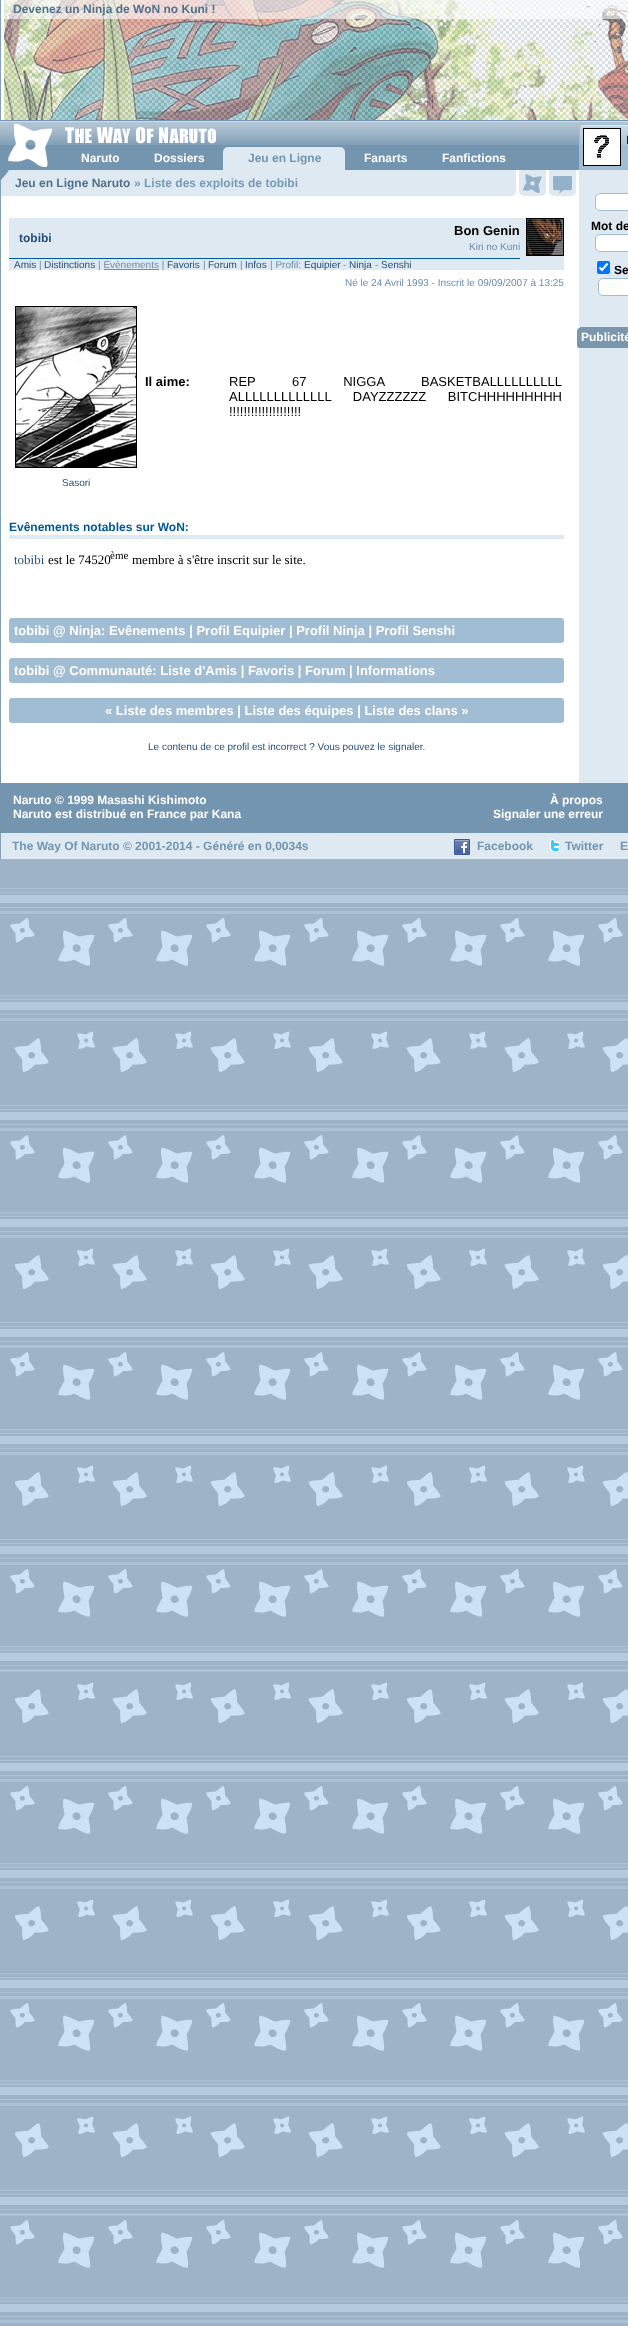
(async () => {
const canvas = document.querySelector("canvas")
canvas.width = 628
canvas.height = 2326
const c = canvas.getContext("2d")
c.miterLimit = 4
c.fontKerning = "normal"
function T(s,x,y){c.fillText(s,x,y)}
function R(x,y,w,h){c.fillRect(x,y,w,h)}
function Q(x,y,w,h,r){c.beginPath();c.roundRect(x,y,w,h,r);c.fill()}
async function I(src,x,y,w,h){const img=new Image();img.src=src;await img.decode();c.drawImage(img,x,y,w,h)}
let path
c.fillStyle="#fff"
R(0,0,628,2326)
await I("1.png",0,859,628,1467)
c.fillStyle="#82a0b8"
R(0,0,1,859)
await I("2.png",4,0,624,120)
c.font="bold 12px Liberation Sans"
c.fillStyle="#51728c"
T("Devenez un Ninja de WoN no Kuni !",13,13)
c.fillStyle="#7395b0"
R(1,120,627,50)
await I("3.png",9,121,619,24)
c.fillStyle="#a0bdd4"
path = new Path2D("M582 124h46c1.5 0 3 1.5 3 3v43h-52v-43c0-1.5 1.5-3 3-3z")
c.fill(path)
await I("4.png",579,124,49,21)
c.strokeStyle="#000"
c.strokeRect(583.5,128.5,37,37)
await I("5.png",584,129,36,36)
c.font="12px Liberation Sans"
c.fillStyle="#000"
T("I",626,144)
c.fillStyle="#dfe9f1"
c.beginPath()
c.roundRect(1,170,515,26,[0,0,5,0])
c.fill()
await I("6.png",0,120,9,60)
await I("7.png",8,123,208,44)
c.font="bold 12px Liberation Sans"
c.fillStyle="#fff"
T("Naruto",81,162)
T("Dossiers",154,162)
c.fillStyle="#dfe9f1"
c.beginPath()
c.roundRect(223,147,122,23,[5,5,0,0])
c.fill()
c.fillStyle="#7395b0"
T("Jeu en Ligne",248,162)
c.fillStyle="#fff"
T("Fanarts",364,162)
T("Fanfictions",442,162)
c.fillStyle="#dfe9f1"
c.beginPath()
c.roundRect(519,170,27,26,[0,0,5,5])
c.fill()
R(519,192,27,1)
await I("8.png",523,174,19,19)
c.beginPath()
c.roundRect(549,170,27,26,[0,0,5,5])
c.fill()
R(549,192,27,1)
await I("9.png",553,176,19,17)
c.fillStyle="#dfe9f2"
R(579,170,49,613)
c.fillStyle="#51728c"
T("Jeu en Ligne Naruto",15,187)
c.fillStyle="#769bb8"
T("» Liste des exploits de tobibi",134,187)
c.fillStyle="#dfe9f1"
R(9,218,555,40)
c.fillStyle="#244f78"
T("tobibi",19,242)
c.font="bold 13px Liberation Sans"
c.fillStyle="#000"
T("Bon Genin",454,235)
c.font="10px Liberation Sans"
c.fillStyle="#6a8dae"
T("Kiri no Kuni",469,250)
c.strokeRect(526.5,218.5,37,37)
await I("10.png",527,219,36,36)
c.fillStyle="#dfe9f1"
R(520,258,44,1)
c.fillStyle="#005998"
R(9,258,511,1)
c.fillStyle="#dfe9f1"
R(9,259,555,11)
c.fillStyle="#244f78"
T("Amis",14,268)
c.fillStyle="#6a8dae"
T("|",39,268)
c.fillStyle="#244f78"
T("Distinctions",44,268)
c.fillStyle="#6a8dae"
T("| Evènements |",98,268)
c.fillStyle="#244f78"
T("Favoris",167,268)
c.fillStyle="#6a8dae"
T("|",203,268)
c.fillStyle="#244f78"
T("Forum",208,268)
c.fillStyle="#6a8dae"
T("|",240,268)
c.fillStyle="#244f78"
T("Infos",245,268)
c.fillStyle="#6a8dae"
T("| Profil:",270,268)
c.fillStyle="#244f78"
T("Equipier",304,268)
c.fillStyle="#6a8dae"
T("-",343,268)
c.fillStyle="#244f78"
T("Ninja",349,268)
c.fillStyle="#6a8dae"
T("-",375,268)
c.fillStyle="#244f78"
T("Senshi",381,268)
c.fillStyle="#6a8dae"
R(104,269,55,1)
T("Né le 24 Avril 1993 - Inscrit le 09/09/2007 à 13:25",345,286)
c.font="bold 13px Liberation Sans"
c.fillStyle="#000"
T("Il aime:",145,386)
c.wordSpacing="33px"
c.font="13px Liberation Sans"
T("REP 67 NIGGA",229,386)
c.wordSpacing="0px"
T("BASKETBALLLLLLLLLL",421,386)
c.wordSpacing="18px"
T("ALLLLLLLLLLLLL DAYZZZZZZ BITCHHHHHHHHH",229,401)
c.wordSpacing="0px"
T("!!!!!!!!!!!!!!!!!!!!",229,416)
c.strokeRect(15.5,306.5,121,161)
await I("11.png",16,307,120,160)
c.font="10px Liberation Sans"
c.fillStyle="#244f78"
T("Sasori",62,486)
c.fillStyle="#dfe9f1"
R(9,535,555,4)
c.font="bold 12px Liberation Sans"
c.fillStyle="#005998"
T("Evênements notables sur WoN:",9,531)
c.font="13px Liberation Serif"
c.fillStyle="#244f78"
T("tobibi",14,564)
c.fillStyle="#000"
T("est le 74520",48,564)
c.font="11px Liberation Serif"
T("ème",110,559)
c.font="13px Liberation Serif"
T("membre à s'être inscrit sur le site.",132,564)
c.fillStyle="#a0bdd4"
Q(9,618,555,25,3)
c.font="bold 13px Liberation Sans"
c.fillStyle="#fff"
T("tobibi @ Ninja: Evênements | Profil Equipier | Profil Ninja | Profil Senshi",14,635)
c.fillStyle="#a0bdd4"
Q(9,658,555,25,3)
c.fillStyle="#fff"
T("tobibi @ Communauté: Liste d'Amis | Favoris | Forum | Informations",14,675)
c.fillStyle="#a0bdd4"
Q(9,698,555,25,3)
c.fillStyle="#fff"
T("« Liste des membres | Liste des équipes | Liste des clans »",105,715)
c.font="10px Liberation Sans"
c.fillStyle="#244f78"
T("Le contenu de ce profil est incorrect ? Vous pouvez le signaler.",148,750)
c.fillStyle="#fff"
c.beginPath()
c.roundRect(595.5,193.5,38,17,4.5)
c.fill()
c.strokeStyle="#a0bdd4"
c.stroke()
c.font="bold 12px Liberation Sans"
c.fillStyle="#000"
T("Mot de",591,230)
c.fillStyle="#fff"
c.beginPath()
c.roundRect(595.5,234.5,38,17,4.5)
c.fill()
c.stroke()
c.fillStyle="#0075ff"
Q(597,261,13,13,2)
path = new Path2D("M599.5 267.5l2.5 2.5l5.5-6.5")
c.strokeStyle="#fff"
c.lineWidth=2.1
c.stroke(path)
c.fillStyle="#000"
T("Se",614,274)
c.fillStyle="#fff"
c.beginPath()
c.roundRect(598.5,278.5,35,17,4.5)
c.fill()
c.strokeStyle="#a0bdd4"
c.lineWidth=1
c.stroke()
c.fillStyle="#7996ad"
R(580,327,48,21)
await I("12.png",577,327,3,21)
c.fillStyle="#fff"
T("Publicité",581,341)
c.fillStyle="#7395b0"
R(1,783,627,50)
R(0,773,1,60)
c.fillStyle="#fff"
T("Naruto © 1999 Masashi Kishimoto",13,804)
T("Naruto est distribué en France par Kana",13,818)
T("À propos",550,804)
T("Signaler une erreur",493,818)
c.fillStyle="#dfe9f1"
R(1,833,627,26)
c.fillStyle="#7395b0"
T("The Way Of Naruto © 2001-2014 - Généré en 0,0034s",12,850)
await I("13.png",454,839,16,16)
T("Facebook",477,850)
await I("14.png",550,839,10,13)
T("Twitter",565,850)
T("E",620,850)
})()
